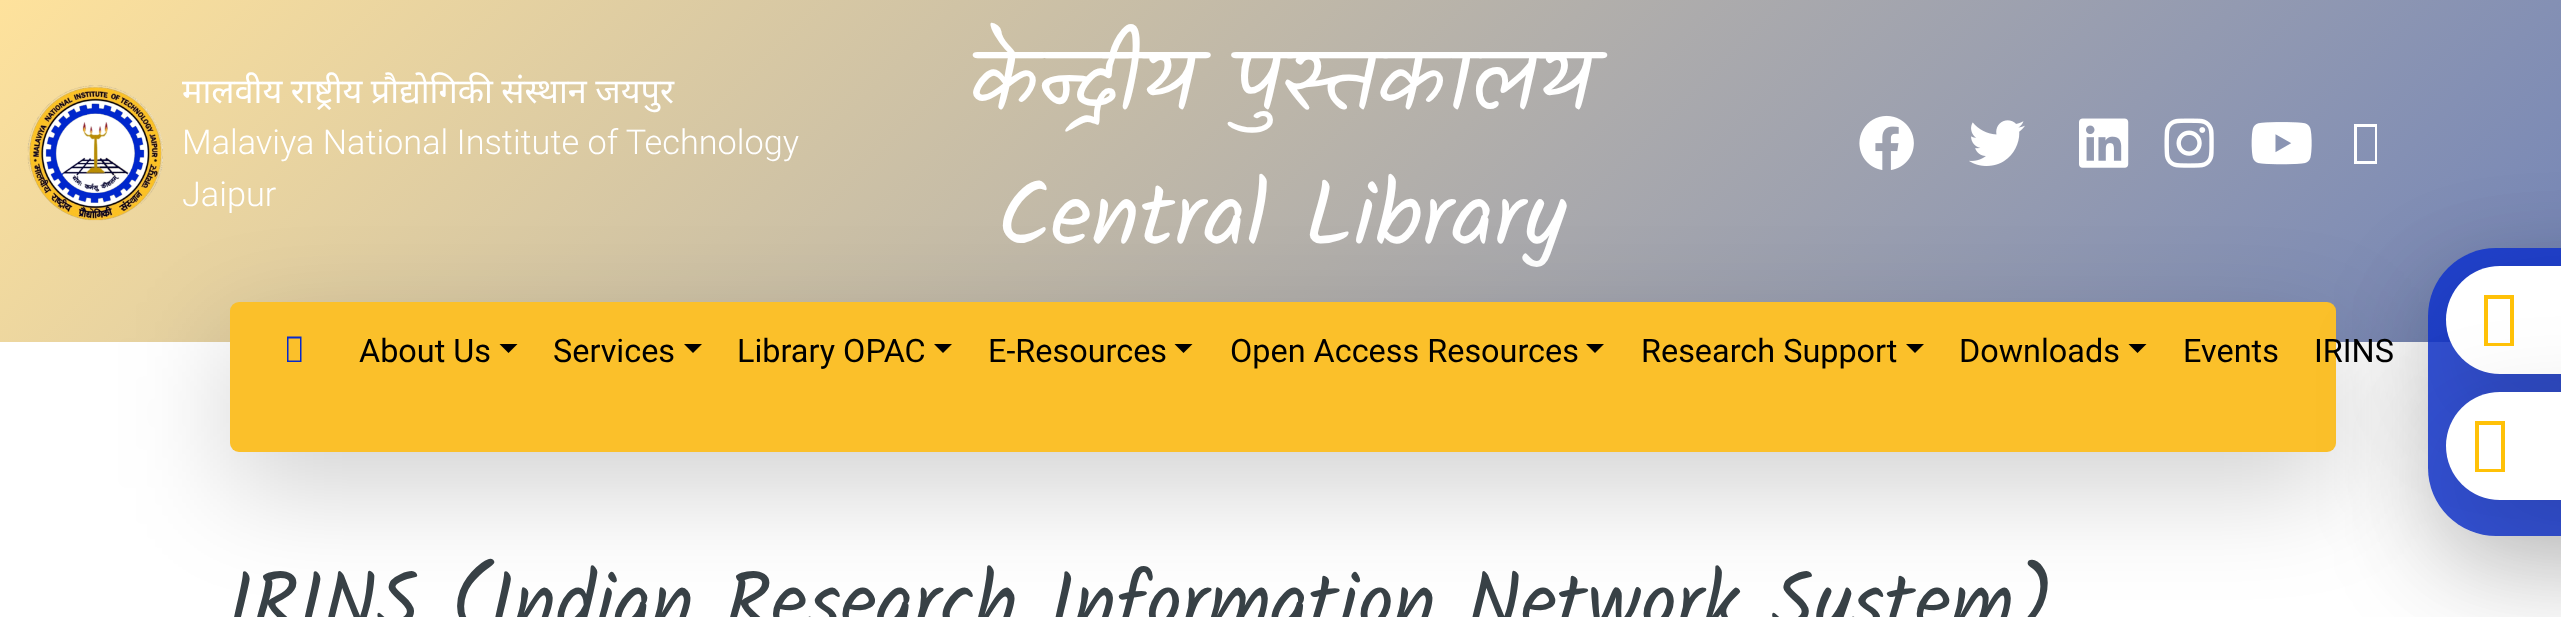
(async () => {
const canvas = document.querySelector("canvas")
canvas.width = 2561
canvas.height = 617
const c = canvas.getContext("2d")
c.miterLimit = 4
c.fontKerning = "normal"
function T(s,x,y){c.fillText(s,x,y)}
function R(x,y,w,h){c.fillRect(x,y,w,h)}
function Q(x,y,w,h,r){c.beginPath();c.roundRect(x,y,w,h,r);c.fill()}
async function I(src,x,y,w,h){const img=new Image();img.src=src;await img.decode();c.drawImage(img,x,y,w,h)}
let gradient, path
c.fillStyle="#fff"
R(0,0,2561,617)
gradient = c.createLinearGradient(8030,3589,2221,-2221)
gradient.addColorStop(0,"#1434c6")
gradient.addColorStop(.33,"#1f39ae")
gradient.addColorStop(.67,"#4767c0")
gradient.addColorStop(1,"#fee29c")
c.fillStyle = gradient
R(0,0,2561,342)
await I("1.png",27,85,136,136)
c.wordSpacing="-0.5px"
c.font="34.25px Noto Sans"
c.fillStyle="#fff"
T("मालवीय राष्ट्रीय प्रौद्योगिकी संस्थान जयपुर",182,103)
c.wordSpacing="0px"
c.font="300 34.25px Roboto"
T("Malaviya National Institute of Technology",182,154)
T("Jaipur",182,206)
c.font="90px Kalam"
T("केन्द्रीय पुस्तकालय",969,110)
T("Central Library",997,245)
await I("2.png",1859,115,55,55)
await I("3.png",1969,120,56,46)
await I("4.png",2079,118,50,50)
await I("5.png",2164,118,50,50)
await I("6.png",2251,122,61,43)
path = new Path2D("M2354 164v-40h23v40zm3-3h18v-34h-18z")
c.fill(path)
c.fillStyle="#0000002e"
c.filter="blur(54px)"
c.beginPath()
c.roundRect(230,338,2106,150,9)
c.fill()
c.filter="none"
c.fillStyle="#fbc02a"
Q(230,302,2106,150,9)
c.save()
path = new Path2D("M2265 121h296v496h-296zm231 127h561c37.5 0 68 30.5 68 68v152c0 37.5-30.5 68-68 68h-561c-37.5 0-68-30.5-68-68v-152c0-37.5 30.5-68 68-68z")
c.clip(path,"evenodd")
c.fillStyle="#0000002e"
c.filter="blur(54px)"
c.beginPath()
c.roundRect(2428,284,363,288,68)
c.fill()
c.filter="none"
c.restore()
c.fillStyle="#1134cfd9"
Q(2428,248,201,288,68)
c.fillStyle="#0000002e"
c.filter="blur(54px)"
c.beginPath()
c.roundRect(2446,302,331,108,54)
c.fill()
c.filter="none"
c.fillStyle="#fff"
Q(2446,266,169,108,54)
c.fillStyle="#0000002e"
c.filter="blur(54px)"
c.beginPath()
c.roundRect(2446,428,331,108,54)
c.fill()
c.filter="none"
c.fillStyle="#ffc107"
path = new Path2D("M2484 346v-51h30v51zm4-3h22v-44h-22z")
c.fill(path)
c.fillStyle="#fff"
Q(2446,392,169,108,54)
c.fillStyle="#ffc107"
path = new Path2D("M2475 472v-51h30v51zm4-3h22v-44h-22z")
c.fill(path)
c.fillStyle="#062acc"
path = new Path2D("M287 362v-25.5h14.5v25.5zm1.5-1.5h11.5v-22h-11.5z")
c.fill(path)
c.font="32.4px Roboto"
c.fillStyle="#000"
T("About Us",359,362)
path = new Path2D("M499.5 344h18l-9 9z")
c.fill(path)
T("Services",553,362)
path = new Path2D("M684 344h18l-9 9z")
c.fill(path)
T("Library OPAC",737,362)
path = new Path2D("M934 344h18l-9 9z")
c.fill(path)
T("E-Resources",988,362)
path = new Path2D("M1174.5 344h18l-9 9z")
c.fill(path)
T("Open Access Resources",1230,362)
path = new Path2D("M1586 344h18l-9 9z")
c.fill(path)
T("Research Support",1641,362)
path = new Path2D("M1906 344h18l-9 9z")
c.fill(path)
T("Downloads",1959,362)
path = new Path2D("M2128.5 344h18l-9 9z")
c.fill(path)
T("Events",2183,362)
T("IRINS",2314,362)
c.font="79.2px Kalam"
c.fillStyle="#384146"
T("IRINS (Indian Research Information Network System)",228,628)
})()
